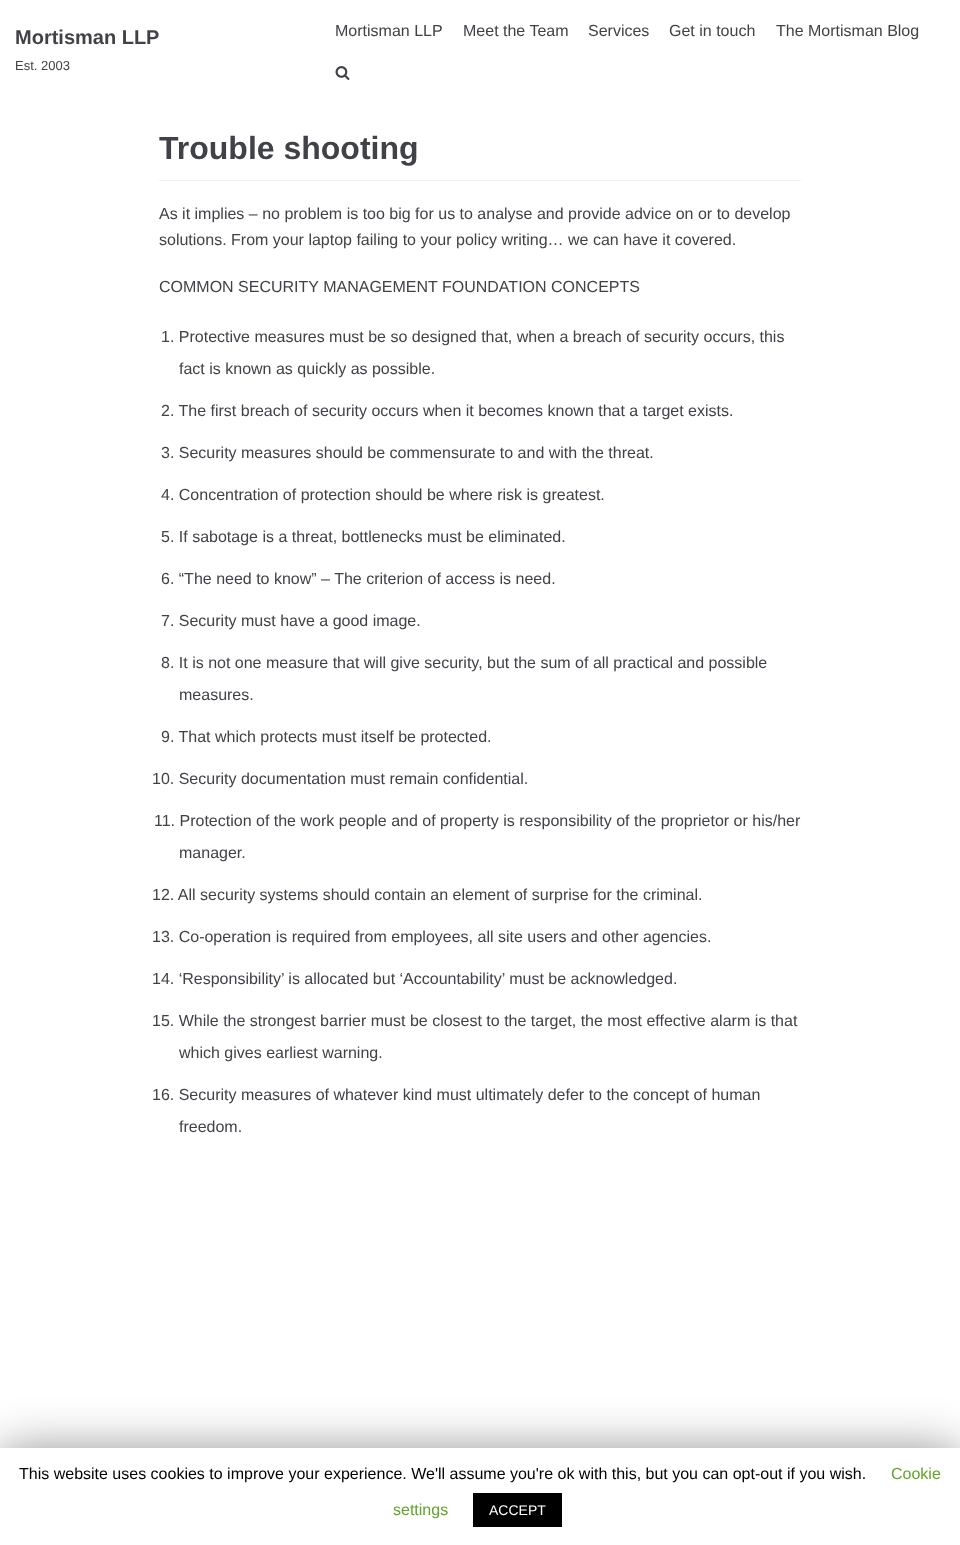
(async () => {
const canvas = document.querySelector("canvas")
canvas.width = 960
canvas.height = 1545
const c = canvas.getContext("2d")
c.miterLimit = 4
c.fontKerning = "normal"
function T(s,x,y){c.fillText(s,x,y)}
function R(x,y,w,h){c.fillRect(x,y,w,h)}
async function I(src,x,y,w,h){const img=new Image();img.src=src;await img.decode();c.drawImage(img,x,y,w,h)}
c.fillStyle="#fff"
R(0,0,960,1545)
c.font="bold 20px Liberation Sans"
c.fillStyle="#404248"
T("Mortisman LLP",15,44)
c.font="13px Liberation Sans"
T("Est. 2003",15,70)
c.font="16px Liberation Sans"
T("Mortisman LLP",335,36)
T("Meet the Team",463,36)
T("Services",588,36)
T("Get in touch",669,36)
T("The Mortisman Blog",776,36)
await I("1.png",335,66,15,14)
c.fillStyle="#f0f0f0"
R(159,180,642,1)
c.font="bold 32px Liberation Sans"
c.fillStyle="#404248"
T("Trouble shooting",159,159)
c.font="16px Liberation Sans"
T("As it implies – no problem is too big for us to analyse and provide advice on or to develop",159,219)
T("solutions. From your laptop failing to your policy writing… we can have it covered.",159,245)
T("COMMON SECURITY MANAGEMENT FOUNDATION CONCEPTS",159,292)
T("1. Protective measures must be so designed that, when a breach of security occurs, this",161,342)
T("fact is known as quickly as possible.",179,374)
T("2. The first breach of security occurs when it becomes known that a target exists.",161,416)
T("3. Security measures should be commensurate to and with the threat.",161,458)
T("4. Concentration of protection should be where risk is greatest.",161,500)
T("5. If sabotage is a threat, bottlenecks must be eliminated.",161,542)
T("6. “The need to know” – The criterion of access is need.",161,584)
T("7. Security must have a good image.",161,626)
T("8. It is not one measure that will give security, but the sum of all practical and possible",161,668)
T("measures.",179,700)
T("9. That which protects must itself be protected.",161,742)
T("10. Security documentation must remain confidential.",152,784)
T("11. Protection of the work people and of property is responsibility of the proprietor or his/her",154,826)
T("manager.",179,858)
T("12. All security systems should contain an element of surprise for the criminal.",152,900)
T("13. Co-operation is required from employees, all site users and other agencies.",152,942)
T("14. ‘Responsibility’ is allocated but ‘Accountability’ must be acknowledged.",152,984)
T("15. While the strongest barrier must be closest to the target, the most effective alarm is that",152,1026)
T("which gives earliest warning.",179,1058)
T("16. Security measures of whatever kind must ultimately defer to the concept of human",152,1100)
T("freedom.",179,1132)
c.fillStyle="#00000080"
c.filter="blur(25px)"
c.beginPath()
c.rect(0,1453,960,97)
c.fill()
c.filter="none"
c.fillStyle="#fff"
R(0,1448,960,97)
c.fillStyle="#000"
T("This website uses cookies to improve your experience. We'll assume you're ok with this, but you can opt-out if you wish.",19,1479)
c.fillStyle="#62a329"
T("Cookie",891,1479)
T("settings",393,1515)
c.fillStyle="#000"
R(473,1493,89,34)
c.font="14px Liberation Sans"
c.fillStyle="#fff"
T("ACCEPT",489,1515)
})()
